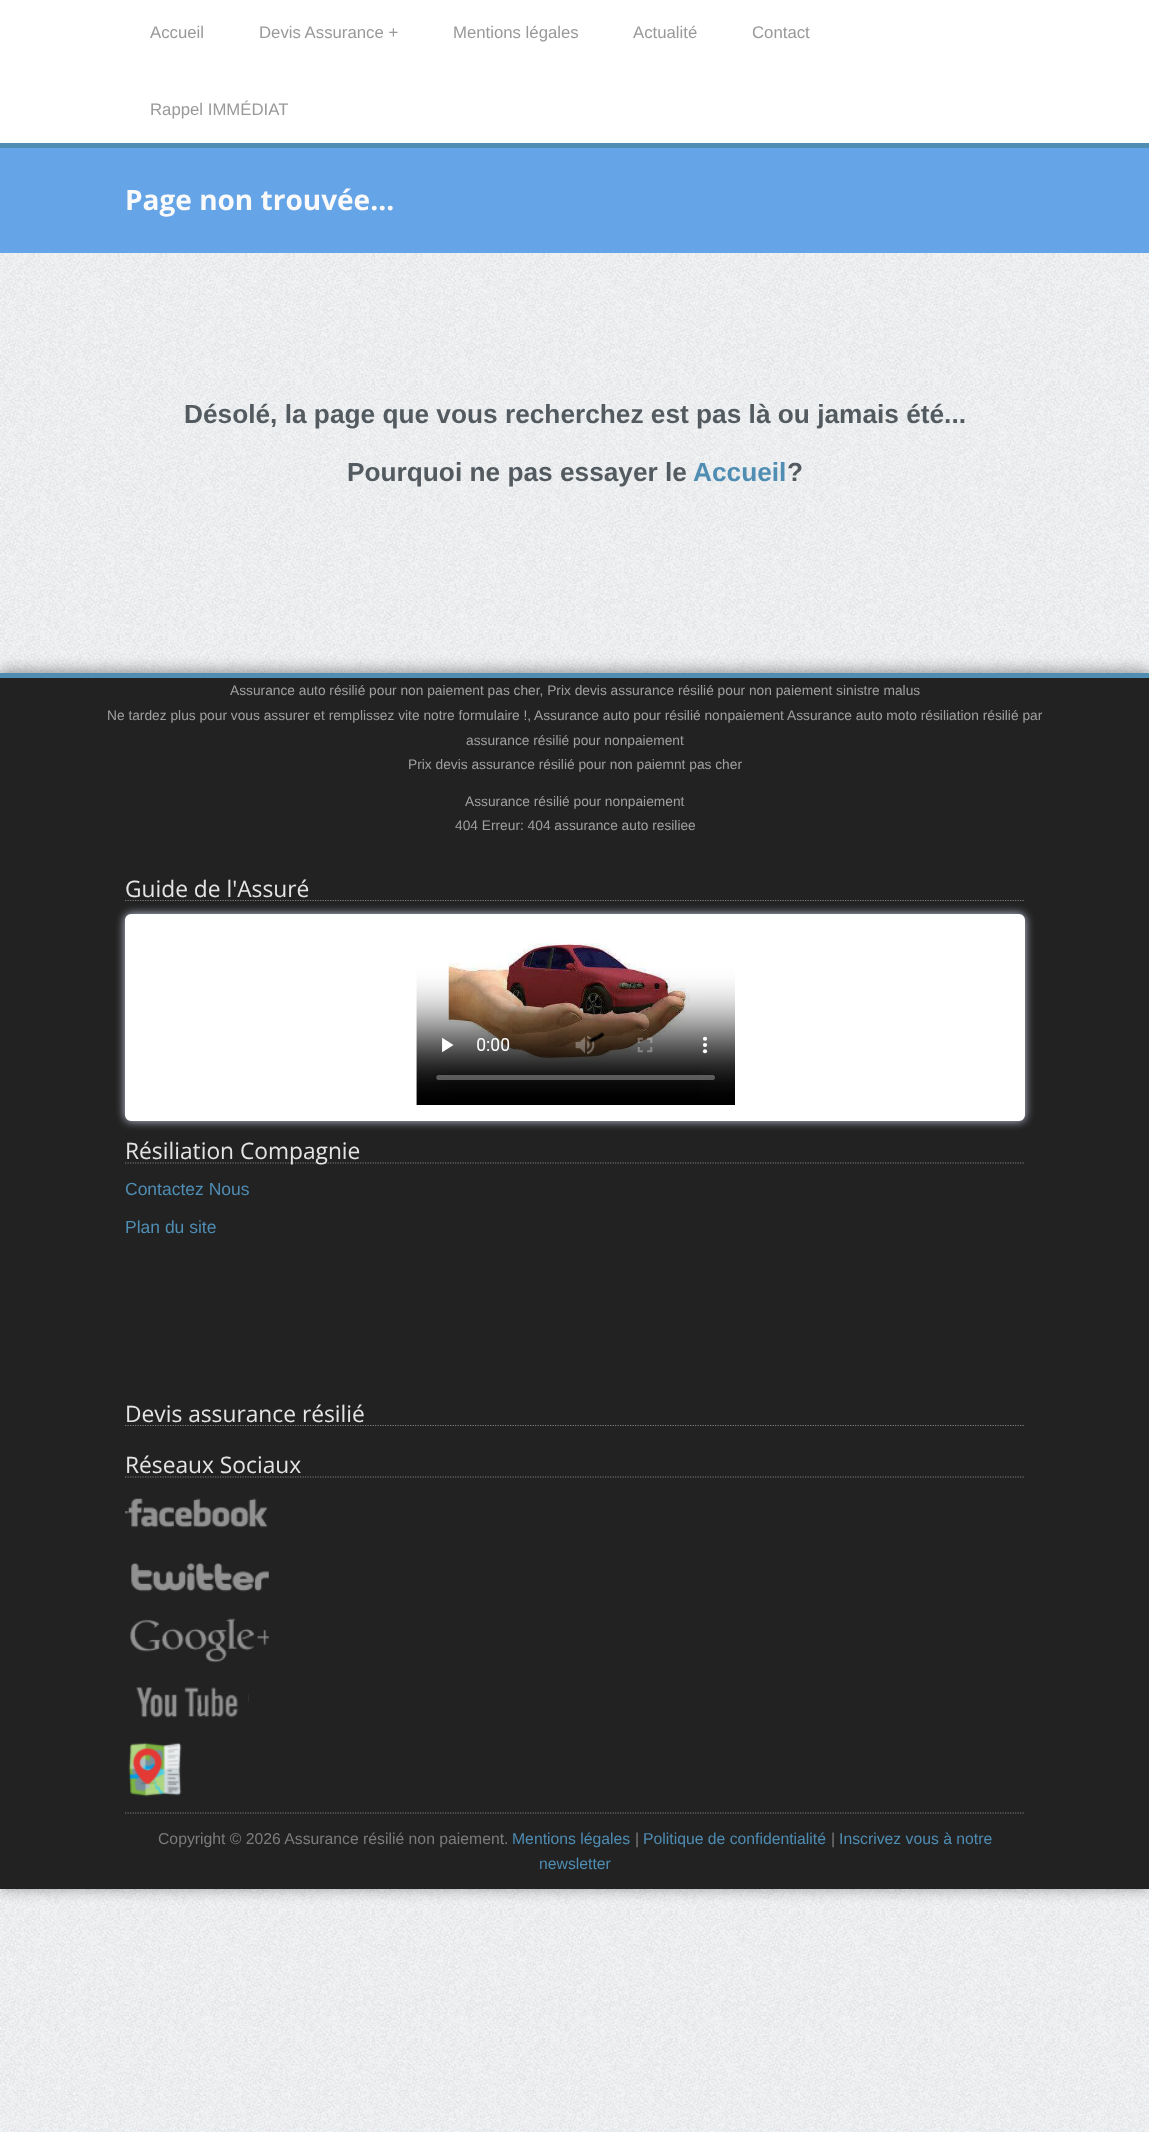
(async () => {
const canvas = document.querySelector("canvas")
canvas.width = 1149
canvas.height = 2132
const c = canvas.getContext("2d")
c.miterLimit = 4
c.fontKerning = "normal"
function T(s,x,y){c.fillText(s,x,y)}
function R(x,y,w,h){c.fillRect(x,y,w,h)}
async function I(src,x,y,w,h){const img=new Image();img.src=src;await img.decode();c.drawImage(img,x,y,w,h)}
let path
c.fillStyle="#fff"
R(0,0,1149,2132)
await I("1.png",0,253,1149,1879)
c.fillStyle="#4f8db3"
R(0,143,1149,5)
c.font="16.75px Liberation Sans"
c.fillStyle="#999"
T("Accueil",150,38)
T("Devis Assurance +",259,38)
T("Mentions légales",453,38)
T("Actualité",633,38)
T("Contact",752,38)
T("Rappel IMMÉDIAT",150,115)
c.fillStyle="#65a4e6"
R(0,148,1149,105)
c.font="bold 28px Open Sans"
c.fillStyle="#fafafa"
T("Page non trouvée...",125,210)
c.font="bold 26.25px Liberation Sans"
c.fillStyle="#535b60"
T("Désolé, la page que vous recherchez est pas là ou jamais été...",184,423)
T("Pourquoi ne pas essayer le",347,481)
c.fillStyle="#4f8db3"
T("Accueil",693,481)
c.fillStyle="#535b60"
T("?",787,481)
c.fillStyle="#00000066"
c.filter="blur(7.5px)"
c.beginPath()
c.rect(0,671,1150,1217)
c.fill()
c.filter="none"
c.fillStyle="#222"
R(0,678,1149,1211)
c.fillStyle="#4f8db3"
R(0,673,1149,5)
c.font="13.75px Liberation Sans"
c.fillStyle="#a0a0a0"
T("Assurance auto résilié pour non paiement pas cher, Prix devis assurance résilié pour non paiement sinistre malus",230,695)
T("Ne tardez plus pour vous assurer et remplissez vite notre formulaire !,",107,720)
T("Assurance auto pour résilié nonpaiement",534,720)
T("Assurance auto moto résiliation résilié par",787,720)
T("assurance résilié pour nonpaiement",466,745)
T("Prix devis assurance résilié pour non paiemnt pas cher",408,769)
T("Assurance résilié pour nonpaiement",465,806)
T("404 Erreur: 404 assurance auto resiliee",455,830)
path = new Path2D("M125 900.5h900")
c.strokeStyle="#7c7c7c"
c.lineWidth=1.2
c.setLineDash([1.25,1.25])
c.stroke(path)
c.font="22.75px Open Sans"
c.fillStyle="#e4e4e4"
T("Guide de l'Assuré",125,897)
c.fillStyle="#c8cfe6"
c.filter="blur(5px)"
c.beginPath()
c.roundRect(125,914,900,207,6)
c.fill()
c.filter="none"
c.fillStyle="#fff"
c.beginPath()
c.roundRect(130,919,890,197,1)
c.fill()
c.strokeStyle="#fff"
c.lineWidth=10
c.setLineDash([])
c.stroke()
await I("2.png",416,943,319,162)
path = new Path2D("M125 1163h900")
c.strokeStyle="#7c7c7c"
c.lineWidth=1.2
c.setLineDash([1.25,1.25])
c.stroke(path)
c.fillStyle="#e4e4e4"
T("Résiliation Compagnie",125,1159)
c.font="17.5px Liberation Sans"
c.fillStyle="#4f8db3"
T("Contactez Nous",125,1195)
T("Plan du site",125,1233)
path = new Path2D("M125 1425.5h900")
c.stroke(path)
c.font="22.75px Open Sans"
c.fillStyle="#e4e4e4"
T("Devis assurance résilié",125,1422)
path = new Path2D("M125 1477h900")
c.stroke(path)
T("Réseaux Sociaux",125,1473)
await I("3.png",125,1498,143,30)
await I("4.png",131,1562,138,30)
await I("5.png",130,1618,139,45)
await I("6.png",136,1687,113,31)
await I("7.png",128,1742,54,55)
path = new Path2D("M125 1813h900")
c.stroke(path)
c.font="15.75px Liberation Sans"
c.fillStyle="#7c7c7c"
T("Copyright © 2026 Assurance résilié non paiement.",158,1844)
c.fillStyle="#4f8db3"
T("Mentions légales",512,1844)
c.fillStyle="#7c7c7c"
T("|",635,1844)
c.fillStyle="#4f8db3"
T("Politique de confidentialité",643,1844)
c.fillStyle="#7c7c7c"
T("|",831,1844)
c.fillStyle="#4f8db3"
T("Inscrivez vous à notre",839,1844)
T("newsletter",539,1869)
})()
